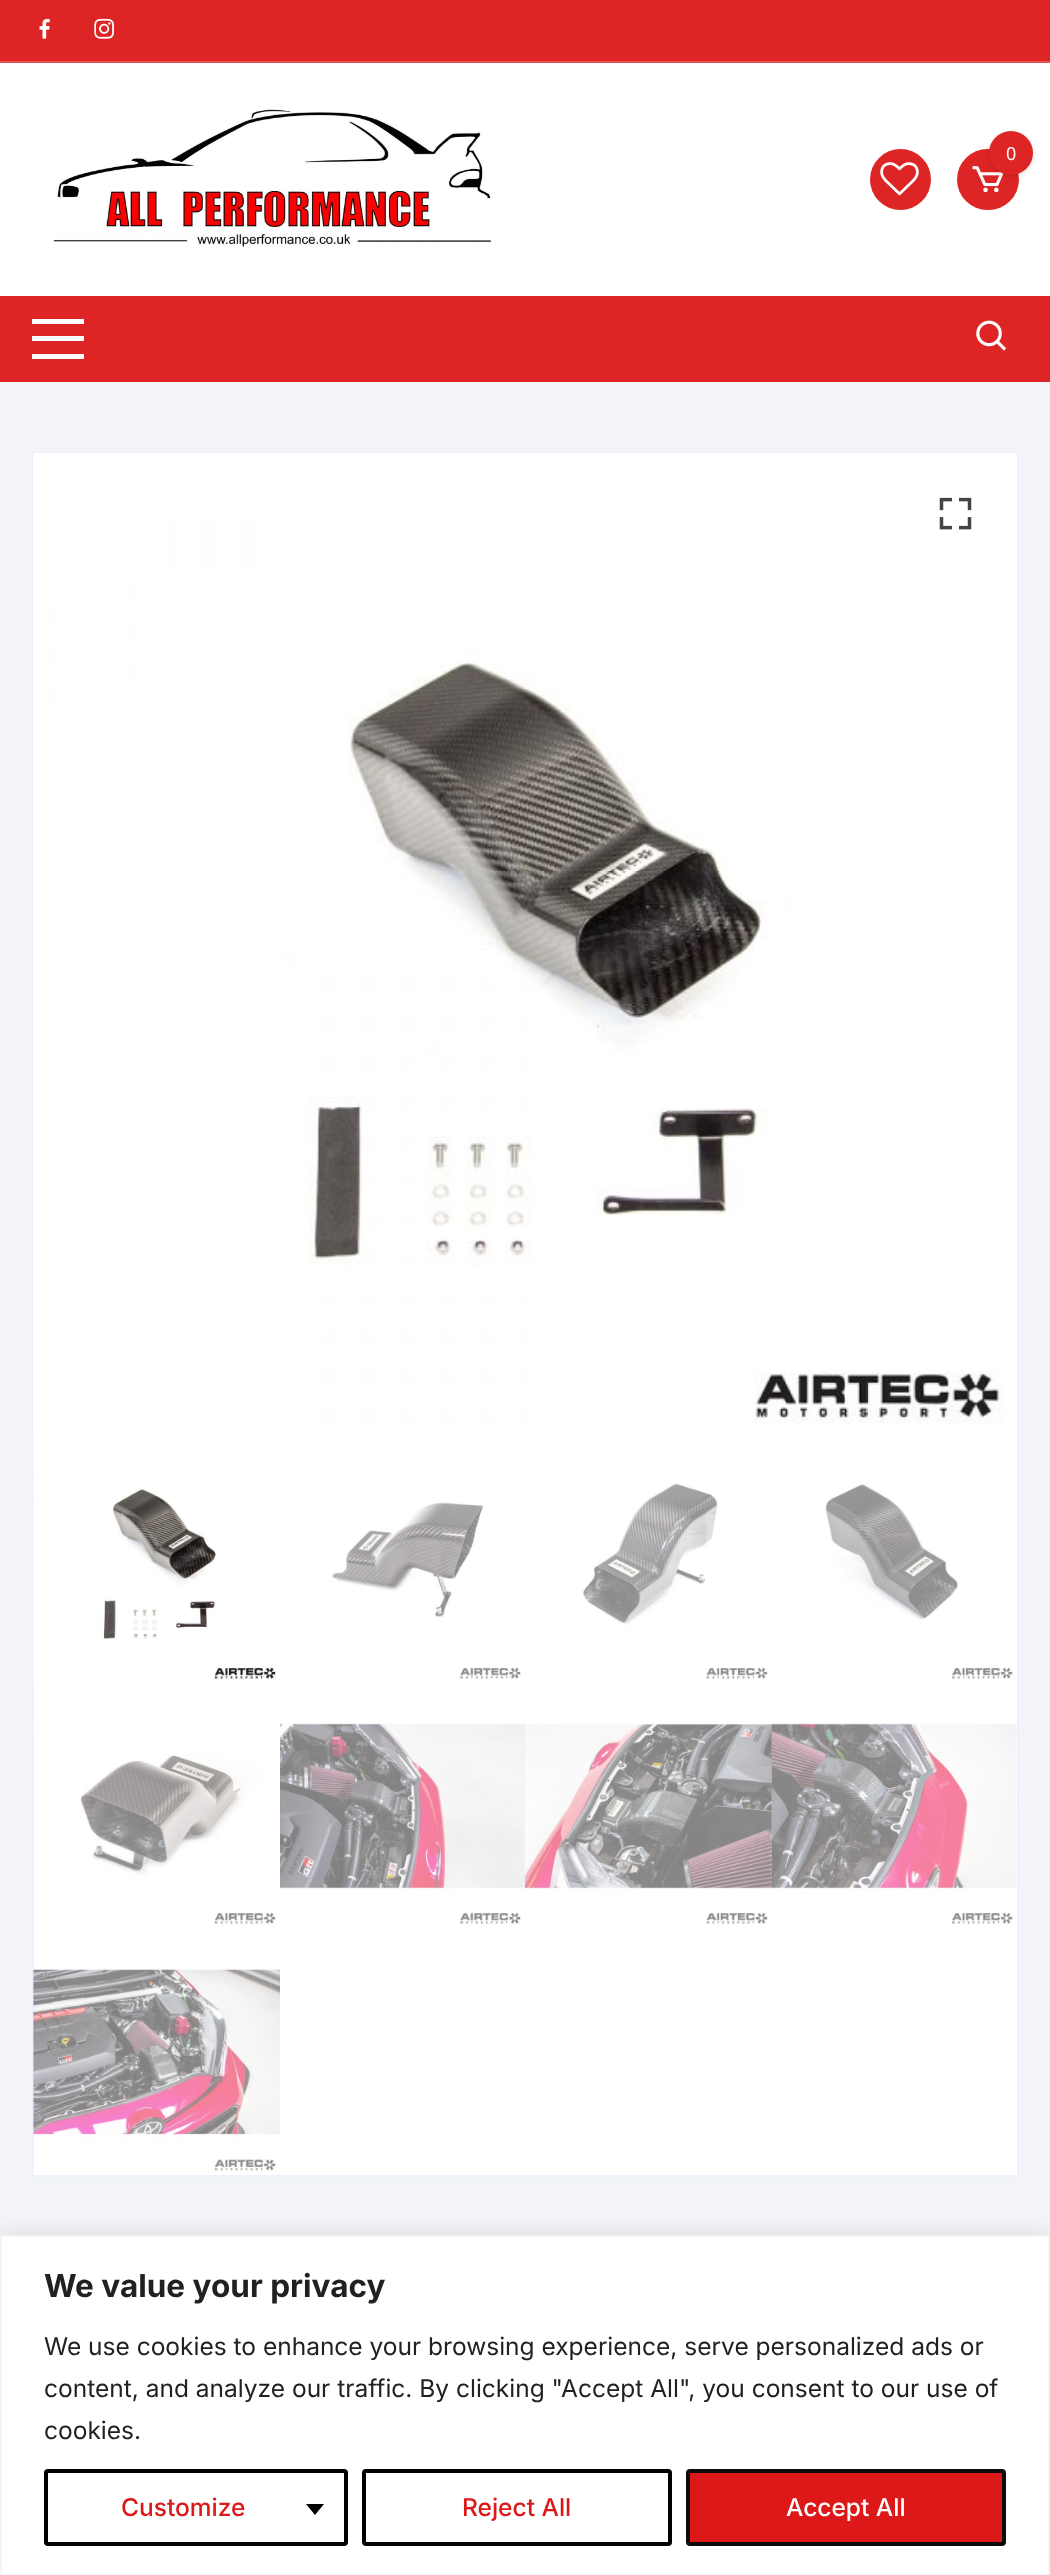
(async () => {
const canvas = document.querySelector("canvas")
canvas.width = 1050
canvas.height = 2575
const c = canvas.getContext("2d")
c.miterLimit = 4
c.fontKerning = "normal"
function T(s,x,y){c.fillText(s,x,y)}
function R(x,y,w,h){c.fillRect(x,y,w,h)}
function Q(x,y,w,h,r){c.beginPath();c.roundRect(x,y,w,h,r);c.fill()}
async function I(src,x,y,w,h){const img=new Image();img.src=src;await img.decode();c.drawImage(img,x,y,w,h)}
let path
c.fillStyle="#f3f4f8"
R(0,0,1050,2575)
c.fillStyle="#fff"
R(0,63,1050,233)
c.fillStyle="#dd2525"
R(0,0,1050,61)
c.fillStyle="#e45151"
R(0,61,1050,2)
await I("1.png",39,18,11,21)
await I("2.png",94,18,20,21)
await I("3.png",53,109,438,138)
c.fillStyle="#dd2525"
c.beginPath()
c.arc(900.5,179.5,30.5,0,7)
c.fill()
await I("4.png",880,162,39,34)
Q(957,149,62,61,30.5)
await I("5.png",972,166,32,27)
c.fillStyle="#00000021"
c.filter="blur(2.5px)"
c.beginPath()
c.roundRect(989,133,44,44,22)
c.fill()
c.filter="none"
c.fillStyle="#dd2525"
c.beginPath()
c.arc(1011,153,22,0,7)
c.fill()
c.font="18px Noto Sans"
c.fillStyle="#fff"
T("0",1006,160)
c.fillStyle="#dd2525"
R(0,296,1050,86)
c.fillStyle="#fff"
R(32,319,52,5)
R(32,336,52,5)
R(32,354,52,5)
await I("6.png",976,320,31,31)
R(34,1437,983,738)
c.strokeStyle="#eef1fd"
c.lineWidth=2
c.strokeRect(33,453,985,1723)
await I("7.png",33,453,984,984)
await I("8.png",939,497,33,33)
await I("9.png",33,1437,243,247)
await I("10.png",332,1502,189,177)
await I("11.png",583,1483,185,196)
await I("12.png",807,1483,206,196)
await I("13.png",33,1684,243,244)
await I("14.png",280,1723,245,201)
await I("15.png",525,1723,247,201)
await I("16.png",771,1723,246,202)
await I("17.png",33,1929,247,246)
c.fillStyle="#acabab4d"
c.filter="blur(9px)"
c.beginPath()
c.rect(0,2233,1050,341)
c.fill()
c.filter="none"
c.fillStyle="#fff"
c.beginPath()
c.rect(1,2236,1048,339)
c.fill()
c.strokeStyle="#f4f4f4"
c.stroke()
c.font="bold 31.5px Inter"
c.fillStyle="#212121"
T("We value your privacy",44,2297)
c.font="24.5px Inter"
T("We use cookies to enhance your browsing experience, serve personalized ads or",44,2355)
T("content, and analyze our traffic. By clicking \"Accept All\", you consent to our use of",44,2397)
T("cookies.",44,2439)
c.beginPath()
c.roundRect(46,2471,300,73,2)
c.strokeStyle="#000"
c.lineWidth=4
c.stroke()
c.font="500 24.5px Inter"
c.fillStyle="#dc1818"
T("Customize",121,2516)
c.fillStyle="#000"
path = new Path2D("M306 2504h18l-9 11z")
c.fill(path)
c.beginPath()
c.roundRect(364,2471,306,73,2)
c.stroke()
c.fillStyle="#dc1818"
T("Reject All",462,2516)
c.beginPath()
c.roundRect(688,2471,316,73,2)
c.fill()
c.strokeStyle="#0c0c0c"
c.stroke()
c.fillStyle="#fff"
T("Accept All",786,2516)
})()
